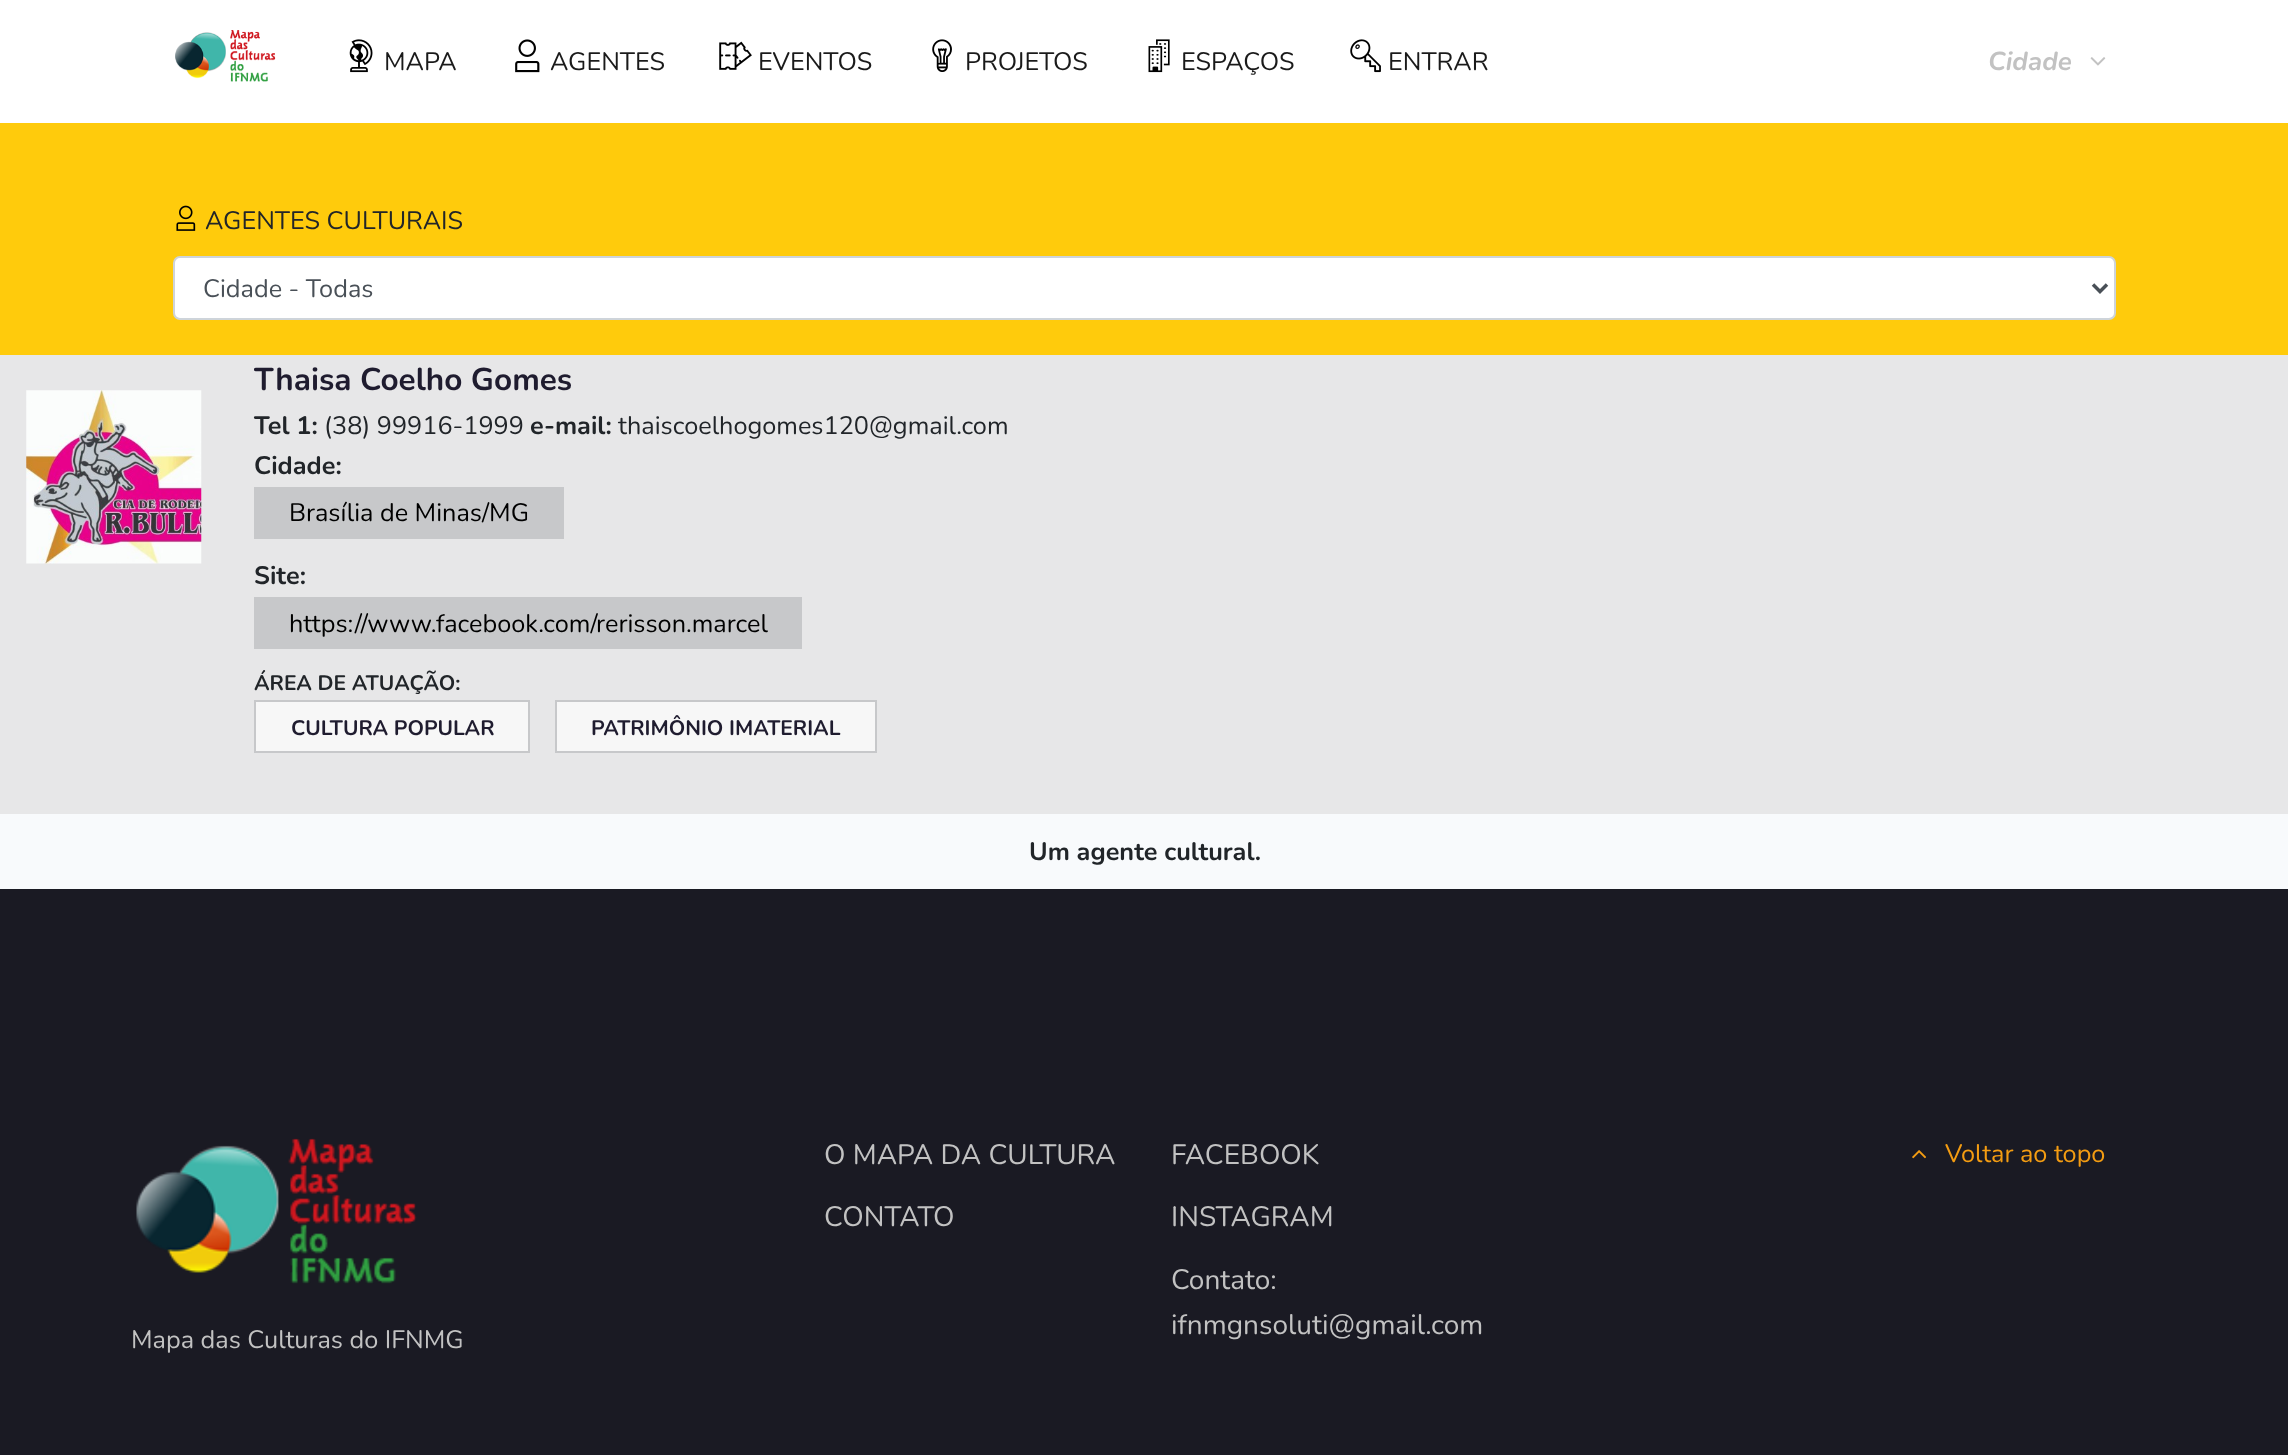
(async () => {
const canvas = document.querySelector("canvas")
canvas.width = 2288
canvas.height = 1455
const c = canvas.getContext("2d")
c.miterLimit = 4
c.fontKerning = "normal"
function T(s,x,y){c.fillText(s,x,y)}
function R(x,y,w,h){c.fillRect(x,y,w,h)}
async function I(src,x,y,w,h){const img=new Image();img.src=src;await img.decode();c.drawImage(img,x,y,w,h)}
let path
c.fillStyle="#f8fafc"
R(0,0,2288,1455)
c.fillStyle="#fff"
R(0,0,2288,123)
await I("1.png",175,30,101,52)
await I("2.png",349,39,24,34)
c.font="25.25px Nunito"
c.fillStyle="#1a1a1a"
T("MAPA",384,70)
await I("3.png",515,39,25,34)
T("AGENTES",550,70)
await I("4.png",719,41,33,29)
T("EVENTOS",758,70)
await I("5.png",932,39,20,33)
T("PROJETOS",965,70)
await I("6.png",1148,39,22,34)
T("ESPAÇOS",1181,70)
await I("7.png",1350,39,31,34)
T("ENTRAR",1388,70)
c.font="italic bold 26px Nunito"
c.fillStyle="#c2c2c2"
T("Cidade",1988,70)
await I("8.png",2090,57,16,9)
c.fillStyle="#ffcb0c"
R(0,123,2288,232)
await I("9.png",176,205,20,26)
c.font="25.25px Nunito"
c.fillStyle="#212529"
T("AGENTES CULTURAIS",205,229)
c.fillStyle="#fff"
c.beginPath()
c.roundRect(174,257,1941,62,6)
c.fill()
c.strokeStyle="#ced4da"
c.lineWidth=2
c.stroke()
path = new Path2D("M2093 284.5l7 7l7-7")
c.strokeStyle="#495057"
c.lineWidth=3.5
c.stroke(path)
c.fillStyle="#495057"
T("Cidade - Todas",203,297)
c.fillStyle="#e7e7e8"
R(0,355,2288,459)
await I("10.png",26,390,176,174)
c.save()
c.beginPath()
c.rect(254,355,754,415)
c.clip()
c.font="bold 31.5px Nunito"
c.fillStyle="#1f1c2f"
T("Thaisa Coelho Gomes",254,390)
c.restore()
c.font="bold 25.25px Nunito"
c.fillStyle="#212529"
T("Tel 1:",254,434)
c.font="25.25px Nunito"
T("(38) 99916-1999",324,434)
c.font="bold 25.25px Nunito"
T("e-mail:",530,434)
c.font="25.25px Nunito"
T("thaiscoelhogomes120@gmail.com",618,434)
c.font="bold 25.25px Nunito"
T("Cidade:",254,474)
c.fillStyle="#c7c8ca"
R(254,487,310,52)
c.font="25.25px Nunito"
c.fillStyle="#000"
T("Brasília de Minas/MG",289,521)
c.font="bold 25.25px Nunito"
c.fillStyle="#212529"
T("Site:",254,584)
c.fillStyle="#c7c8ca"
R(254,597,548,52)
c.font="25.25px Nunito"
c.fillStyle="#000"
T("https://www.facebook.com/rerisson.marcel",289,632)
c.font="bold 21px Nunito"
c.fillStyle="#212529"
T("ÁREA DE ATUAÇÃO:",254,690)
c.fillStyle="#f7f7f7"
c.beginPath()
c.rect(255,701,274,51)
c.fill()
c.strokeStyle="#c7c8ca"
c.lineWidth=2
c.stroke()
c.fillStyle="#1f1c2f"
T("CULTURA POPULAR",291,735)
c.fillStyle="#f7f7f7"
c.beginPath()
c.rect(556,701,320,51)
c.fill()
c.stroke()
c.fillStyle="#1f1c2f"
T("PATRIMÔNIO IMATERIAL",591,735)
c.font="bold 25.25px Nunito"
c.fillStyle="#212529"
T("Um agente cultural.",1029,860)
c.fillStyle="#1a1a23"
R(0,889,2288,566)
c.font="28px Nunito"
c.fillStyle="#c2c2c2"
T("O MAPA DA CULTURA",824,1164)
T("CONTATO",824,1226)
T("FACEBOOK",1171,1164)
T("INSTAGRAM",1171,1226)
T("Contato:",1171,1289)
T("ifnmgnsoluti@gmail.com",1171,1334)
await I("11.png",1912,1150,14,9)
c.font="25.25px Nunito"
c.fillStyle="#f39c12"
T("Voltar ao topo",1945,1162)
await I("12.png",136,1138,281,146)
c.fillStyle="#c2c2c2"
T("Mapa das Culturas do IFNMG",131,1348)
})()
